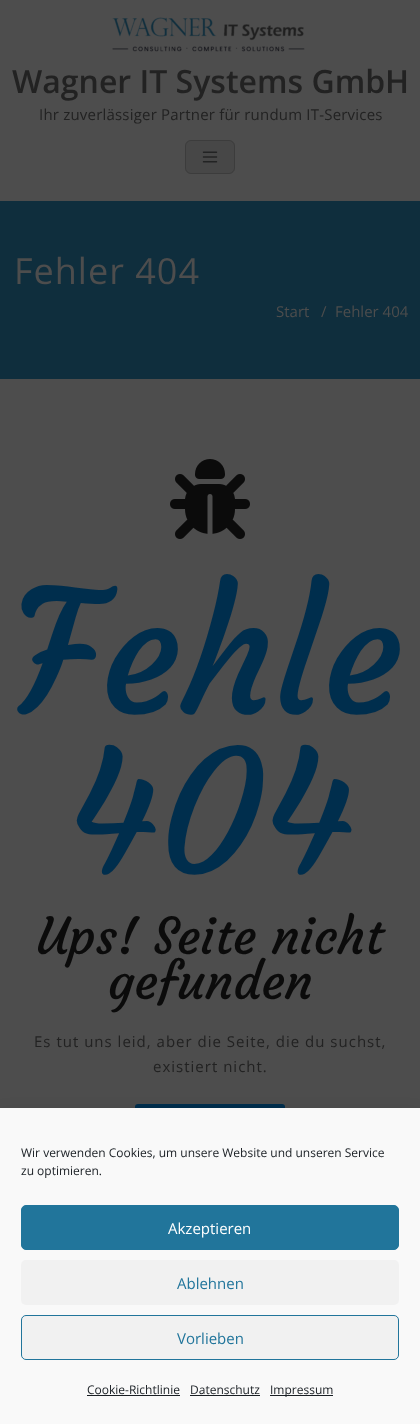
(async () => {
const canvas = document.querySelector("canvas")
canvas.width = 420
canvas.height = 1424
const c = canvas.getContext("2d")
c.miterLimit = 4
c.fontKerning = "normal"
function T(s,x,y){c.fillText(s,x,y)}
function R(x,y,w,h){c.fillRect(x,y,w,h)}
function Q(x,y,w,h,r){c.beginPath();c.roundRect(x,y,w,h,r);c.fill()}
async function I(src,x,y,w,h){const img=new Image();img.src=src;await img.decode();c.drawImage(img,x,y,w,h)}
c.fillStyle="#4d4d4d"
R(0,0,420,1424)
await I("1.png",112,17,193,35)
c.font="600 32px Open Sans"
c.fillStyle="#222"
T("Wagner IT Systems GmbH",12,93)
c.letterSpacing="0.2px"
c.font="15px Open Sans"
T("Ihr zuverlässiger Partner für rundum IT-Services",39,120)
c.fillStyle="#474747"
Q(185,140,50,34,6)
c.beginPath()
c.roundRect(185.5,140.5,49,33,5.5)
c.strokeStyle="#00000026"
c.stroke()
await I("2.png",202,151,16,12)
c.fillStyle="#0f2e3d"
R(0,201,420,178)
c.letterSpacing="1px"
c.font="36px Open Sans"
c.fillStyle="#4d4d4d"
T("Fehler 404",14,284)
c.letterSpacing="0px"
c.font="15px Open Sans"
T("Start",276,317)
T("/",321,317)
T("Fehler 404",335,317)
await I("3.png",170,459,80,80)
c.font="170px Courgette"
c.fillStyle="#002e4d"
T("Fehle",12,714)
T("404",67,874)
c.font="50px Courgette"
c.fillStyle="#0b0b0b"
T("Ups! Seite nicht",37,954)
T("gefunden",108,999)
c.letterSpacing="1px"
c.font="15px Open Sans"
c.fillStyle="#222"
T("Es tut uns leid, aber die Seite, die du suchst,",34,1047)
T("existiert nicht.",153,1072)
c.fillStyle="#002e4d"
Q(135,1104,150,48,3)
c.fillStyle="#00000030"
c.filter="blur(10px)"
c.beginPath()
c.rect(0,1118,420,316)
c.fill()
c.filter="none"
c.fillStyle="#f9f9f9"
R(0,1108,420,316)
c.letterSpacing="0px"
c.font="12px Open Sans"
c.fillStyle="#191e23"
T("Wir verwenden Cookies, um unsere Website und unseren Service",21,1157)
T("zu optimieren.",21,1175)
c.fillStyle="#21759b"
c.beginPath()
c.roundRect(21.5,1205.5,377,44,4.5)
c.fill()
c.strokeStyle="#21759b"
c.stroke()
c.font="15px Open Sans"
c.fillStyle="#fff"
T("Akzeptieren",168,1234)
c.fillStyle="#f1f1f1"
Q(21,1260,378,45,5)
c.fillStyle="#21759b"
T("Ablehnen",177,1289)
c.fillStyle="#f1f1f1"
c.beginPath()
c.roundRect(21.5,1315.5,377,44,4.5)
c.fill()
c.stroke()
c.fillStyle="#21759b"
T("Vorlieben",177,1344)
c.font="12px Open Sans"
c.fillStyle="#191e23"
T("Cookie-Richtlinie",87,1394)
R(87,1395,93,1)
T("Datenschutz",190,1394)
R(190,1395,70,1)
R(270,1395,63,1)
T("Impressum",270,1394)
})()
